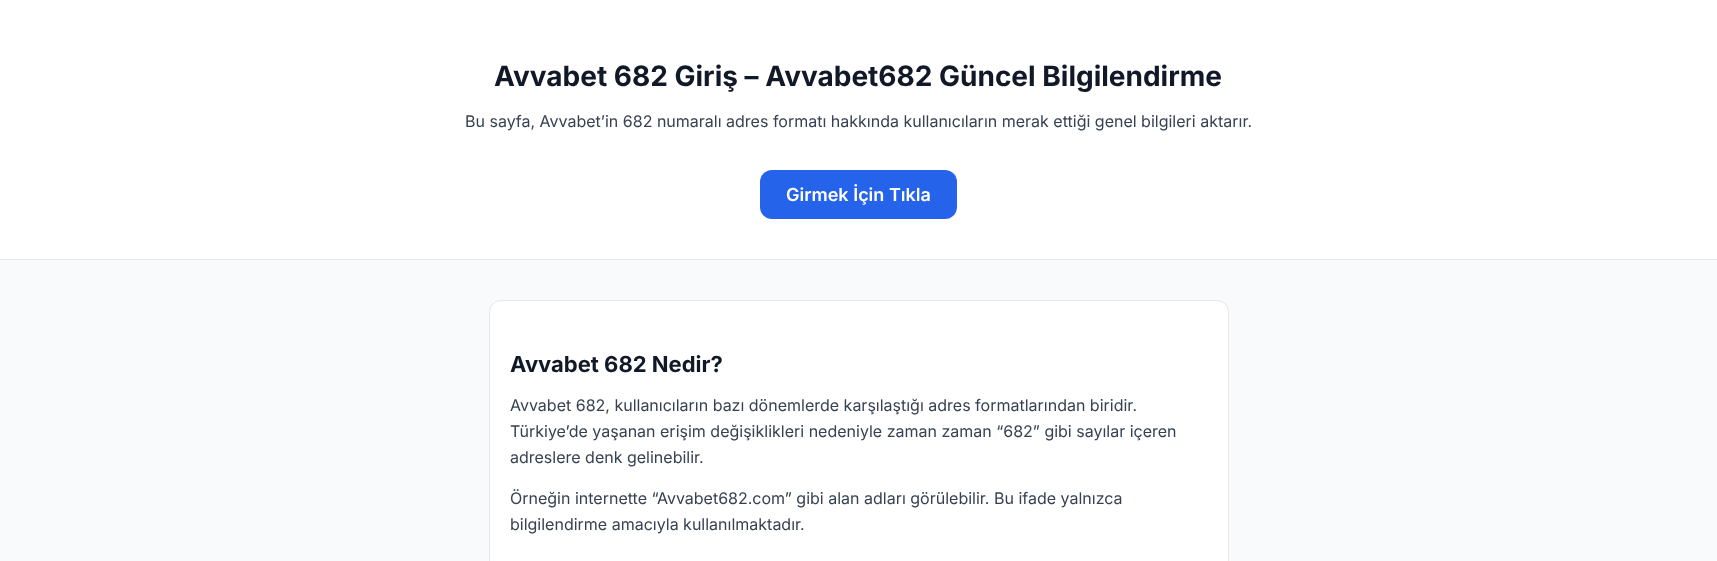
(async () => {
const canvas = document.querySelector("canvas")
canvas.width = 1717
canvas.height = 561
const c = canvas.getContext("2d")
c.miterLimit = 4
c.fontKerning = "normal"
function T(s,x,y){c.fillText(s,x,y)}
function R(x,y,w,h){c.fillRect(x,y,w,h)}
function Q(x,y,w,h,r){c.beginPath();c.roundRect(x,y,w,h,r);c.fill()}
c.fillStyle="#f9fafb"
R(0,0,1717,561)
c.fillStyle="#fff"
R(0,0,1717,259)
c.fillStyle="#e5e7eb"
R(0,259,1717,1)
c.font="bold 28px Inter"
c.fillStyle="#111827"
T("Avvabet 682 Giriş – Avvabet682 Güncel Bilgilendirme",494,86)
c.font="16px Inter"
c.fillStyle="#374151"
T("Bu sayfa, Avvabet’in 682 numaralı adres formatı hakkında kullanıcıların merak ettiği genel bilgileri aktarır.",465,127)
c.fillStyle="#2563eb"
Q(760,170,197,49,12)
c.font="600 18px Inter"
c.fillStyle="#fff"
T("Girmek İçin Tıkla",786,201)
c.beginPath()
c.roundRect(489.5,300.5,739,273,11.5)
c.fill()
c.strokeStyle="#e5e7eb"
c.stroke()
c.font="bold 22px Inter"
c.fillStyle="#111827"
T("Avvabet 682 Nedir?",510,372)
c.font="16px Inter"
c.fillStyle="#374151"
T("Avvabet 682, kullanıcıların bazı dönemlerde karşılaştığı adres formatlarından biridir.",510,411)
T("Türkiye’de yaşanan erişim değişiklikleri nedeniyle zaman zaman “682” gibi sayılar içeren",510,437)
T("adreslere denk gelinebilir.",510,463)
T("Örneğin internette “Avvabet682.com” gibi alan adları görülebilir. Bu ifade yalnızca",510,504)
T("bilgilendirme amacıyla kullanılmaktadır.",510,530)
})()
